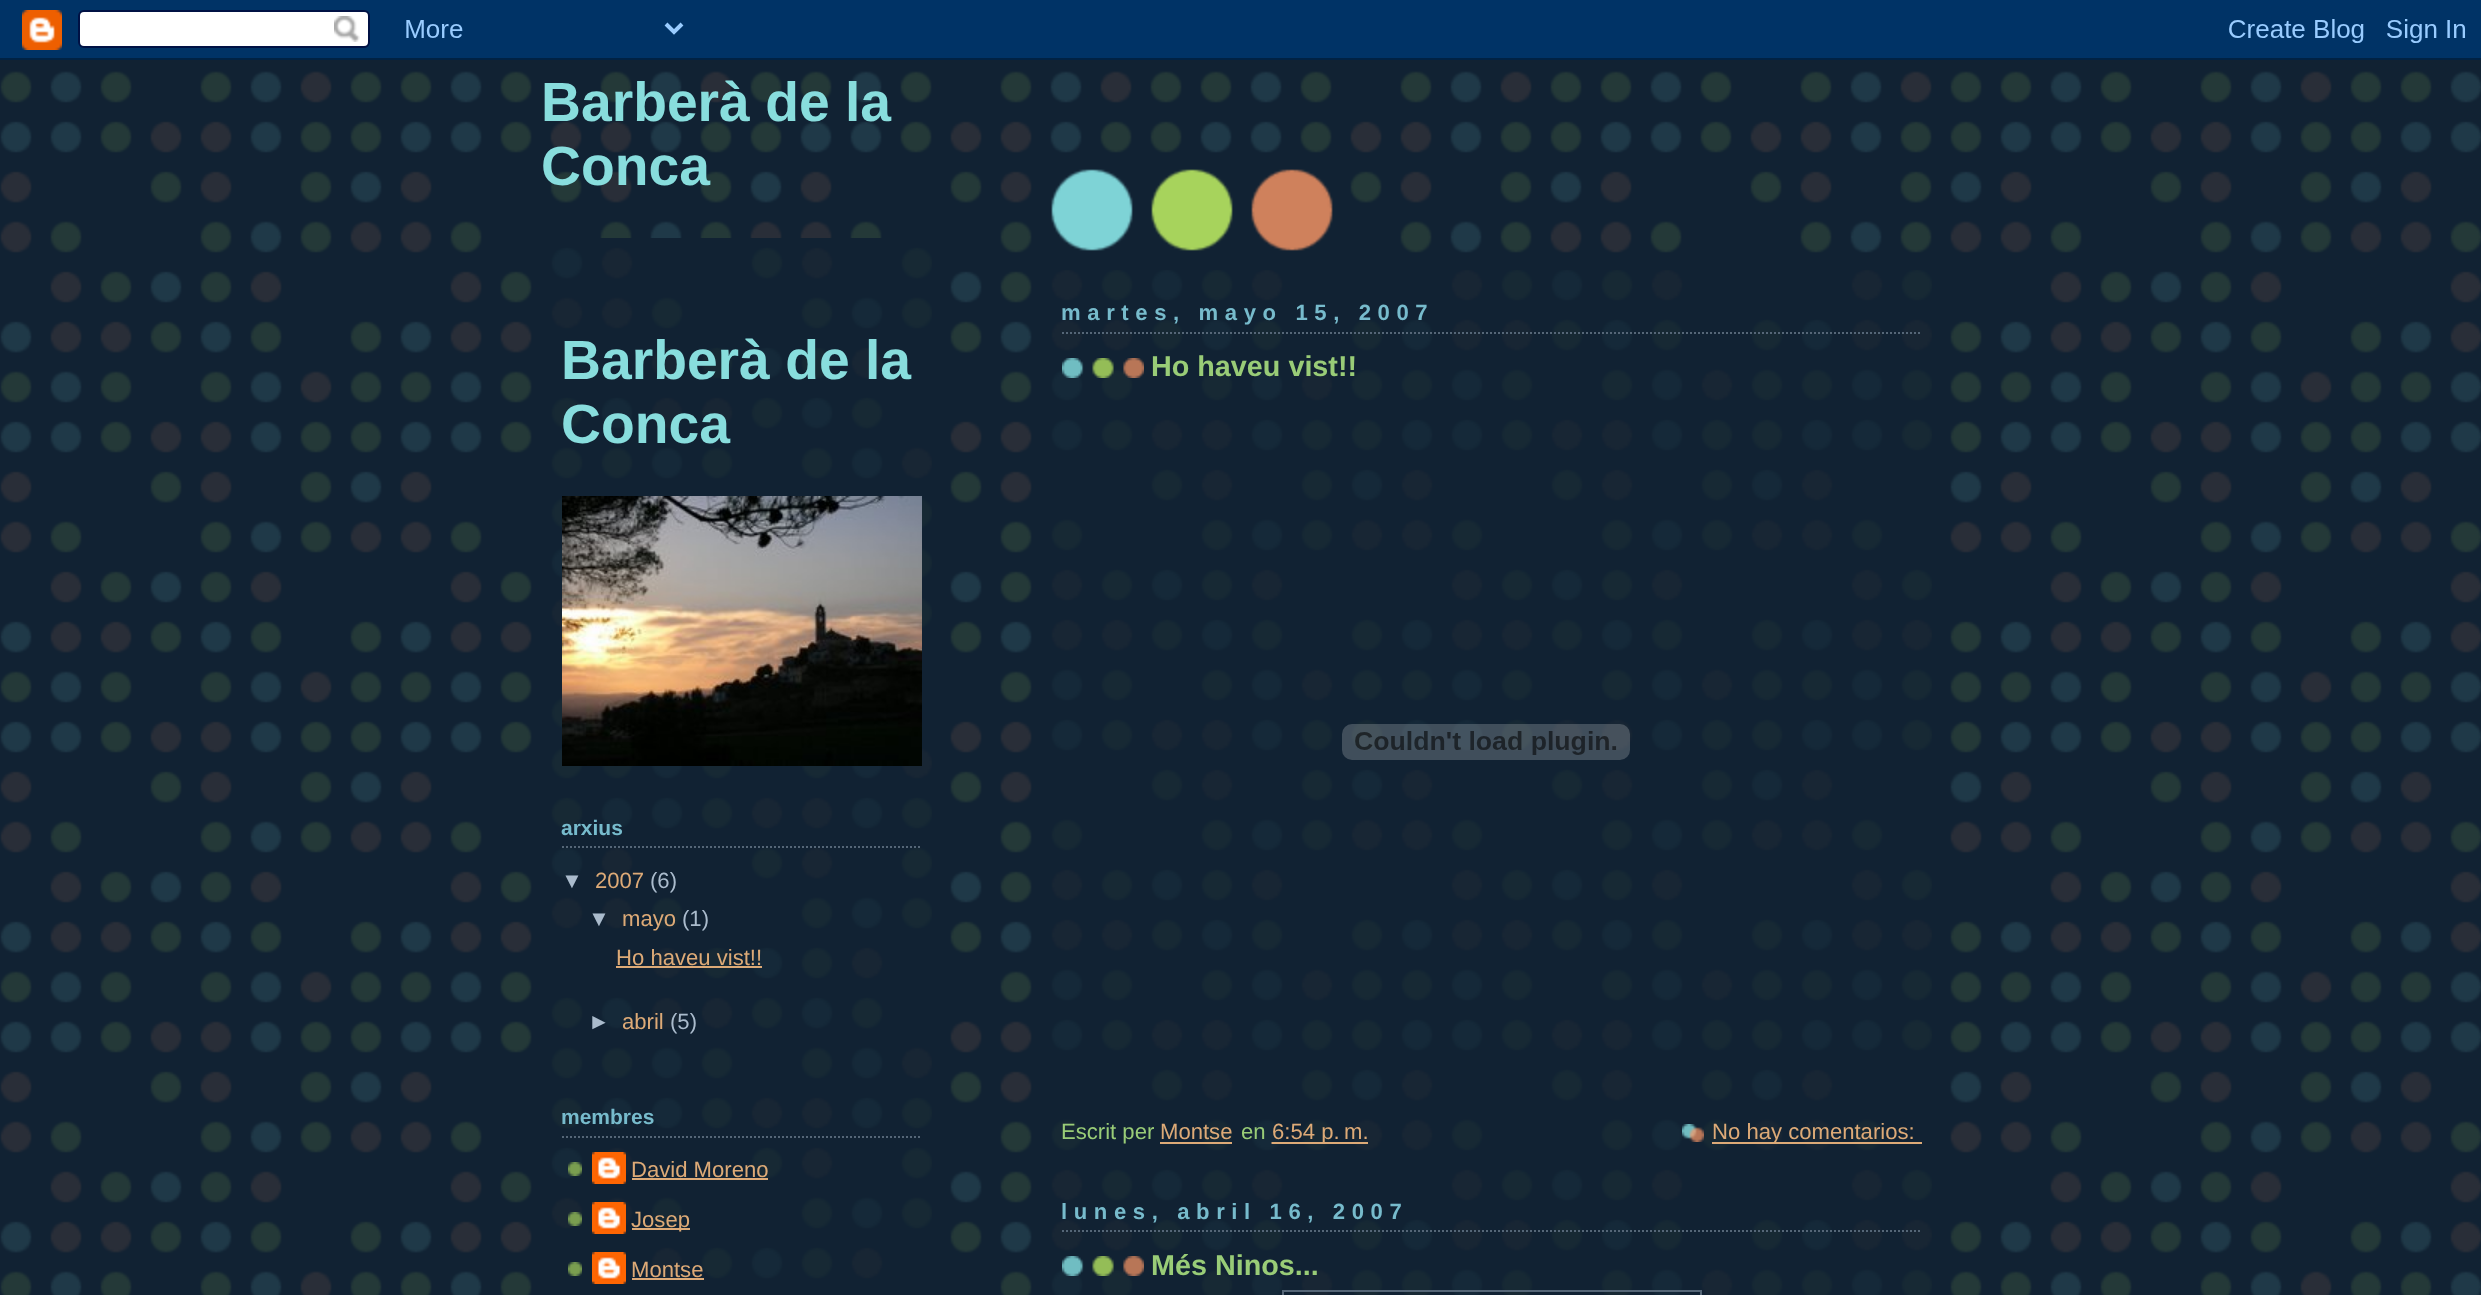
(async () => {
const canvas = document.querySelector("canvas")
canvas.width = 2481
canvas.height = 1295
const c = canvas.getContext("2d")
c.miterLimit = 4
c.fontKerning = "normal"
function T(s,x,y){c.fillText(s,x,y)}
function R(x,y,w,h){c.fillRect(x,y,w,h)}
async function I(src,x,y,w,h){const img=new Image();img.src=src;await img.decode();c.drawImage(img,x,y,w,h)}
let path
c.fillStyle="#fff"
R(0,0,2481,1295)
await I("1.png",0,60,2481,1235)
await I("2.png",0,0,2481,60)
await I("3.png",1050,169,283,84)
c.font="bold 55.25px Liberation Sans"
c.fillStyle="#8dd"
T("Barberà de la",541,121)
T("Conca",541,185)
await I("4.png",550,238,382,1057)
T("Barberà de la",561,379)
T("Conca",561,443)
await I("5.png",562,496,360,270)
path = new Path2D("M562 847h360")
c.strokeStyle="#567"
c.lineWidth=2
c.setLineDash([2,2])
c.stroke(path)
c.font="bold 21px Liberation Sans"
c.fillStyle="#7bc"
T("arxius",561,835)
c.font="22.1px Liberation Sans"
c.fillStyle="#abc"
T("▼",561,888)
c.fillStyle="#da7"
T("2007",595,888)
c.fillStyle="#abc"
T("(6)",650,888)
T("▼",588,926)
c.fillStyle="#da7"
T("mayo",622,926)
c.fillStyle="#abc"
T("(1)",682,926)
c.fillStyle="#da7"
T("Ho haveu vist!!",616,965)
R(616,966,146,2)
c.fillStyle="#abc"
T("►",588,1029)
c.fillStyle="#da7"
T("abril",622,1029)
c.fillStyle="#abc"
T("(5)",670,1029)
path = new Path2D("M562 1137h360")
c.stroke(path)
c.font="bold 21px Liberation Sans"
c.fillStyle="#7bc"
T("membres",561,1124)
await I("6.png",568,1162,14,14)
await I("7.png",592,1152,34,32)
c.font="22.1px Liberation Sans"
c.fillStyle="#da7"
T("David Moreno",631,1177)
R(632,1178,136,2)
await I("8.png",568,1212,14,14)
await I("7.png",592,1202,34,32)
R(632,1228,58,2)
T("Josep",631,1227)
await I("9.png",568,1262,14,14)
await I("10.png",592,1252,34,32)
T("Montse",631,1277)
R(632,1278,72,2)
await I("11.png",1050,270,882,1025)
path = new Path2D("M1062 333h860")
c.stroke(path)
c.letterSpacing="6.6px"
c.font="bold 22.1px Liberation Sans"
c.fillStyle="#7bc"
T("martes, mayo 15, 2007",1061,320)
await I("12.png",1062,358,82,20)
c.letterSpacing="0px"
c.font="bold 28.75px Liberation Sans"
c.fillStyle="#9c7"
T("Ho haveu vist!!",1151,376)
await I("13.png",1342,724,288,36)
c.font="22.1px Liberation Sans"
T("Escrit per",1061,1139)
c.fillStyle="#da7"
T("Montse",1160,1139)
R(1160,1142,72,2)
c.fillStyle="#9c7"
T("en",1241,1139)
path = new Path2D("M1271.5 1143h96.5")
c.strokeStyle="#da7"
c.stroke(path)
c.fillStyle="#da7"
R(1272,1142,96,2)
T("6:54 p. m.",1272,1139)
await I("14.png",1682,1124,22,18)
R(1712,1142,210,2)
T("No hay comentarios:",1712,1139)
path = new Path2D("M1062 1231h860")
c.strokeStyle="#567"
c.stroke(path)
c.letterSpacing="6.6px"
c.font="bold 22.1px Liberation Sans"
c.fillStyle="#7bc"
T("lunes, abril 16, 2007",1061,1219)
await I("15.png",1062,1256,82,20)
c.letterSpacing="0px"
c.font="bold 28.75px Liberation Sans"
c.fillStyle="#9c7"
T("Més Ninos...",1151,1275)
c.setLineDash([])
c.strokeRect(1283,1291,418,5)
})()
